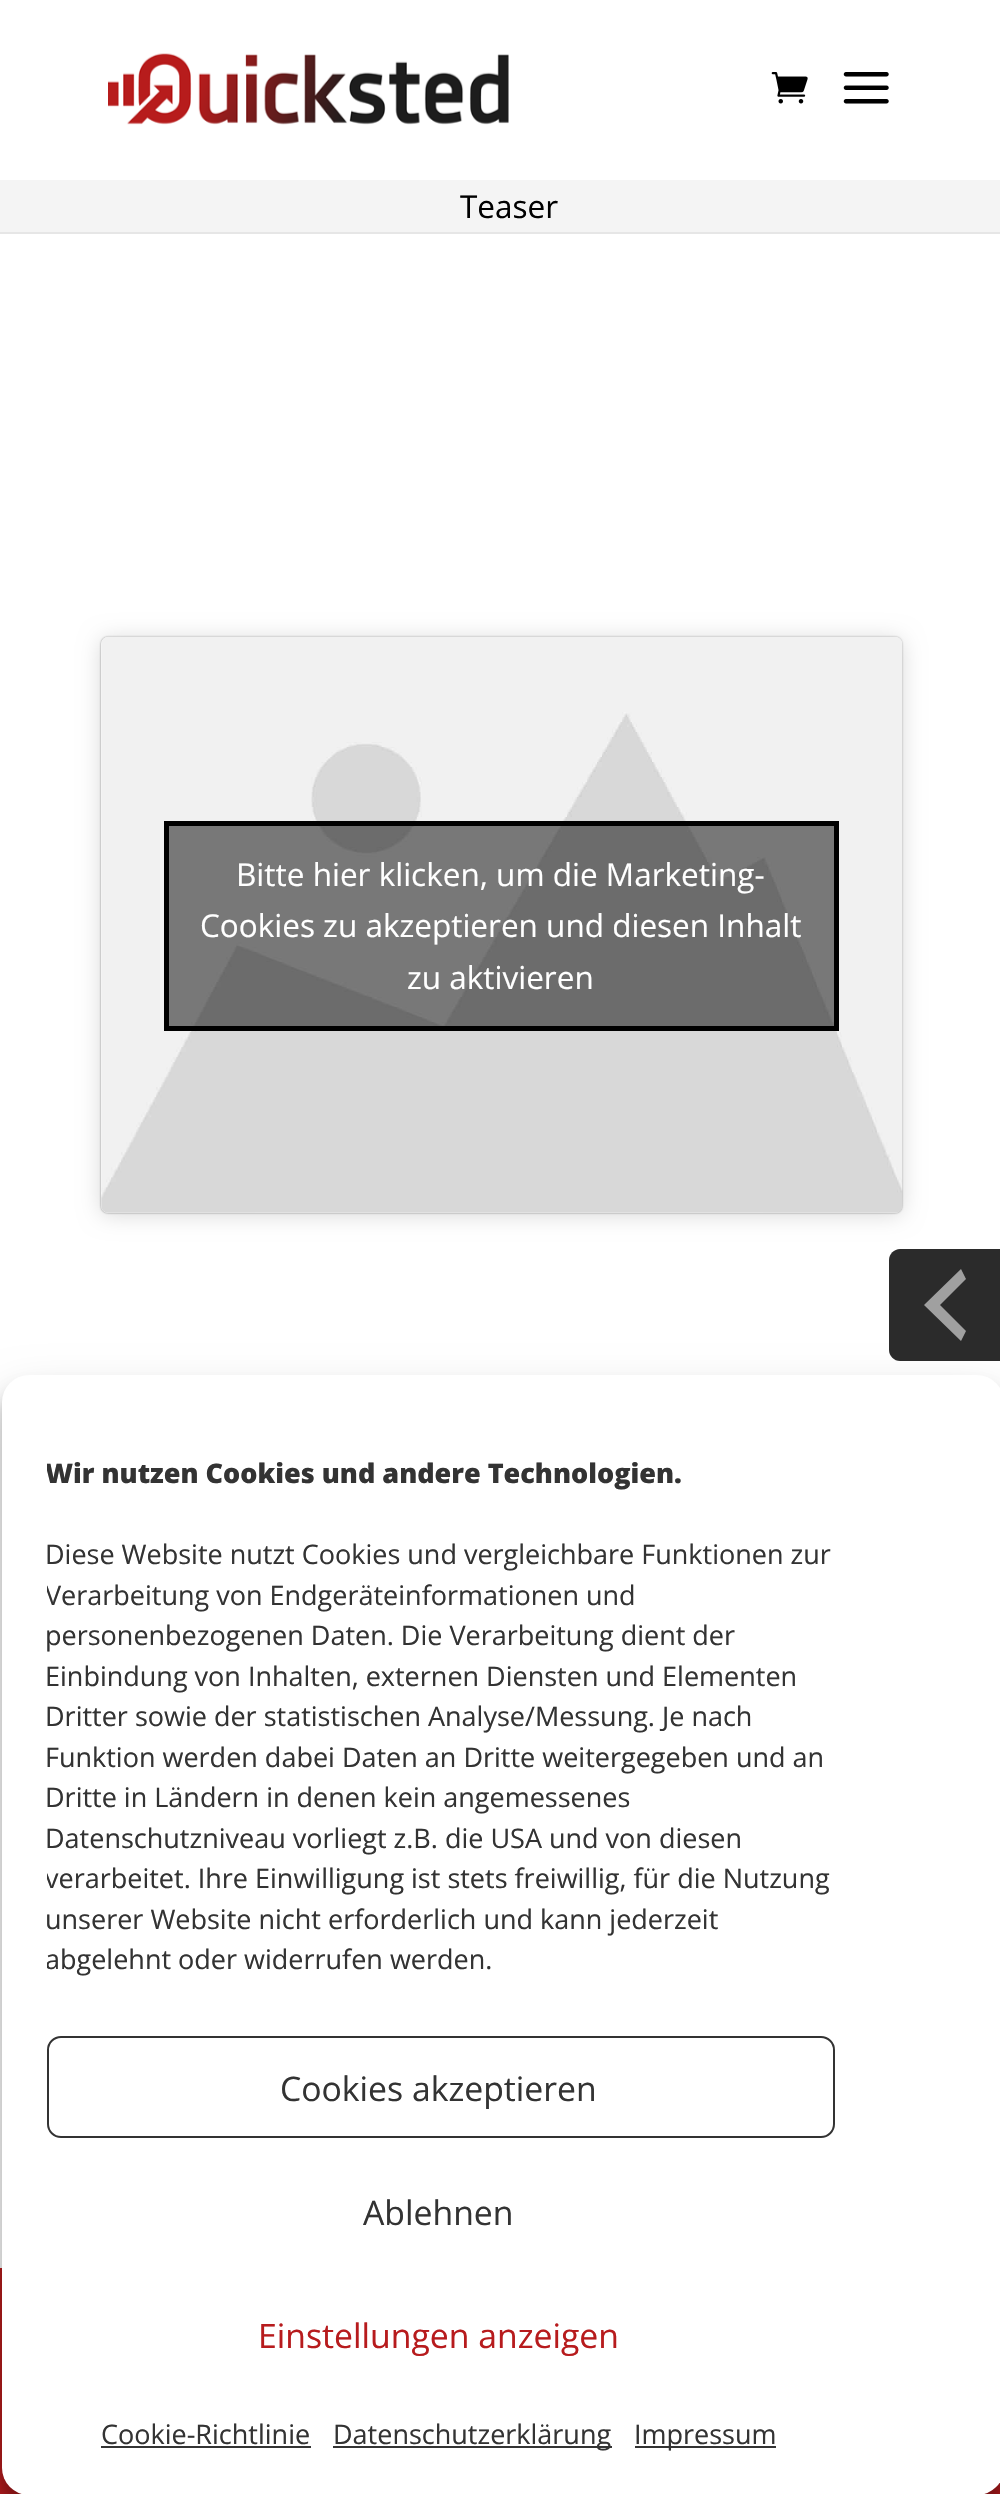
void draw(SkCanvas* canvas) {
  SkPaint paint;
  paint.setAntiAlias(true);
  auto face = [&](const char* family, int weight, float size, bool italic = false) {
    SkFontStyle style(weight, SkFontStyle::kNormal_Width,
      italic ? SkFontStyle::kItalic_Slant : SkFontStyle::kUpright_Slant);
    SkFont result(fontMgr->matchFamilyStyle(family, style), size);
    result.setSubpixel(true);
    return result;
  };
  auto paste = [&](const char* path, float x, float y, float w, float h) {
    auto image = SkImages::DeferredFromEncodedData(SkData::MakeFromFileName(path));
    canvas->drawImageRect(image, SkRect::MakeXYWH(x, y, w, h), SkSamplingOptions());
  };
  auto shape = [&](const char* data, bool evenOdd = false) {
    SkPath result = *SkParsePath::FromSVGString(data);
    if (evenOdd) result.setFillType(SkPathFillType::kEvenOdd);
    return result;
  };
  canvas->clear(0xffffffff);
  paint.setColor(0xffe6e6e6);
  canvas->drawRect(SkRect::MakeXYWH(0, 232, 1000, 2), paint);
  paste("img/1.png", 108, 53, 401, 72);
  paste("img/2.png", 771, 72, 37, 32);
  paste("img/3.png", 843, 72, 46, 32);
  paint.setColor(0xfff4f4f4);
  canvas->drawRect(SkRect::MakeXYWH(0, 180, 1000, 52), paint);
  paint.setColor(0x26000000);
  paint.setMaskFilter(SkMaskFilter::MakeBlur(kNormal_SkBlurStyle, 11));
  canvas->drawRoundRect(SkRect::MakeXYWH(101, 639, 801, 576), 7, 7, paint);
  paint.setMaskFilter(nullptr);
  paint.setColor(0x80000000);
  paint.setMaskFilter(SkMaskFilter::MakeBlur(kNormal_SkBlurStyle, 1));
  canvas->drawRoundRect(SkRect::MakeXYWH(101, 637, 801, 576), 7, 7, paint);
  paint.setMaskFilter(nullptr);
  paint.setColor(0xffffffff);
  canvas->drawRoundRect(SkRect::MakeXYWH(101, 637, 801, 576), 7, 7, paint);
  paste("img/4.png", 101, 636, 802, 577);
  paint.setColor(0x80000000);
  canvas->drawRect(SkRect::MakeXYWH(166.5f, 823.5f, 670, 205), paint);
  paint.setStroke(true);
  paint.setStrokeWidth(5);
  paint.setColor(0xff000000);
  canvas->drawRect(SkRect::MakeXYWH(166.5f, 823.5f, 670, 205), paint);
  paint.setStroke(false);
  paint.setColor(0xffb71b1d);
  canvas->drawRect(SkRect::MakeXYWH(0, 2268, 1000, 226), paint);
  paint.setColor(0x30000000);
  paint.setMaskFilter(SkMaskFilter::MakeBlur(kNormal_SkBlurStyle, 22.5f));
  canvas->drawRoundRect(SkRect::MakeXYWH(2, 1397, 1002, 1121), 27, 27, paint);
  paint.setMaskFilter(nullptr);
  paint.setColor(0xff2b2b2b);
  canvas->drawPath(shape("M900 1249H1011V1361H900C894 1361 889 1356 889 1350V1260C889 1254 894 1249 900 1249Z"), paint);
  paint.setColor(0xffa0a0a0);
  canvas->drawPath(shape("M966 1279L940 1305L966 1331L961 1341L924 1305L961 1269Z"), paint);
  paint.setColor(0x3b000000);
  paint.setMaskFilter(SkMaskFilter::MakeBlur(kNormal_SkBlurStyle, 7));
  canvas->drawRoundRect(SkRect::MakeXYWH(2, 1388, 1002, 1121), 27, 27, paint);
  paint.setMaskFilter(nullptr);
  paint.setColor(0xffffffff);
  canvas->drawRoundRect(SkRect::MakeXYWH(2, 1375, 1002, 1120), 27, 27, paint);
  paint.setStroke(true);
  paint.setStrokeWidth(2);
  paint.setColor(0xff333333);
  canvas->drawRoundRect(SkRect::MakeXYWH(48, 2037, 786, 100), 13, 13, paint);
  paint.setStroke(false);
  {
    const struct { float x, y, w, h; SkColor color; } items[] = {
      {101, 2446, 210, 2, 0xff333333},
      {333, 2446, 279, 2, 0xff333333},
      {635, 2446, 141, 2, 0xff333333},
    };
    for (auto [x, y, w, h, color] : items) {
      paint.setColor(color);
      canvas->drawRect(SkRect::MakeXYWH(x, y, w, h), paint);
    }
  }
  auto f0 = face("Open Sans", 400, 31.5f);
  paint.setColor(0xff000000);
  canvas->drawString("Teaser", 460, 218, f0, paint);
  paint.setColor(0xffffffff);
  {
    const struct { const char* s; float x, y; } items[] = {
      {"Bitte hier klicken, um die Marketing-", 236, 886},
      {"Cookies zu akzeptieren und diesen Inhalt", 200, 937},
      {"zu aktivieren", 407, 989},
    };
    for (auto [s, x, y] : items) {
      canvas->drawString(s, x, y, f0, paint);
    }
  }
  canvas->save();
  canvas->clipRect(SkRect::MakeXYWH(47, 1454, 788, 537));
  auto f1 = face("Open Sans", 800, 27);
  paint.setColor(0xff333333);
  canvas->drawString("Wir nutzen Cookies und andere Technologien.", 45, 1483, f1, paint);
  canvas->restore();
  auto f2 = face("Open Sans", 400, 27);
  canvas->drawString("Diese Website nutzt Cookies und vergleichbare Funktionen zur", 45, 1564, f2, paint);
  canvas->save();
  canvas->clipRect(SkRect::MakeXYWH(47, 1454, 788, 537));
  canvas->drawString("Verarbeitung von Endgeräteinformationen und", 45, 1605, f2, paint);
  canvas->restore();
  {
    const struct { const char* s; float x, y; } items[] = {
      {"personenbezogenen Daten. Die Verarbeitung dient der", 45, 1645},
      {"Einbindung von Inhalten, externen Diensten und Elementen", 45, 1686},
      {"Dritter sowie der statistischen Analyse/Messung. Je nach", 45, 1726},
      {"Funktion werden dabei Daten an Dritte weitergegeben und an", 45, 1767},
      {"Dritte in Ländern in denen kein angemessenes", 45, 1807},
      {"Datenschutzniveau vorliegt z.B. die USA und von diesen", 45, 1848},
    };
    for (auto [s, x, y] : items) {
      canvas->drawString(s, x, y, f2, paint);
    }
  }
  canvas->save();
  canvas->clipRect(SkRect::MakeXYWH(47, 1454, 788, 537));
  canvas->drawString("verarbeitet. Ihre Einwilligung ist stets freiwillig, für die Nutzung", 45, 1888, f2, paint);
  canvas->restore();
  canvas->drawString("unserer Website nicht erforderlich und kann jederzeit", 45, 1929, f2, paint);
  canvas->save();
  canvas->clipRect(SkRect::MakeXYWH(47, 1454, 788, 537));
  canvas->drawString("abgelehnt oder widerrufen werden.", 45, 1969, f2, paint);
  canvas->restore();
  auto f3 = face("Open Sans", 400, 33.75f);
  canvas->drawString("Cookies akzeptieren", 280, 2101, f3, paint);
  canvas->drawString("Ablehnen", 363, 2225, f3, paint);
  paint.setColor(0xffb71b1d);
  canvas->drawString("Einstellungen anzeigen", 258, 2348, f3, paint);
  paint.setColor(0xff333333);
  {
    const struct { const char* s; float x, y; } items[] = {
      {"Cookie-Richtlinie", 101, 2444},
      {"Datenschutzerklärung", 333, 2444},
      {"Impressum", 634, 2444},
    };
    for (auto [s, x, y] : items) {
      canvas->drawString(s, x, y, f2, paint);
    }
  }
}
